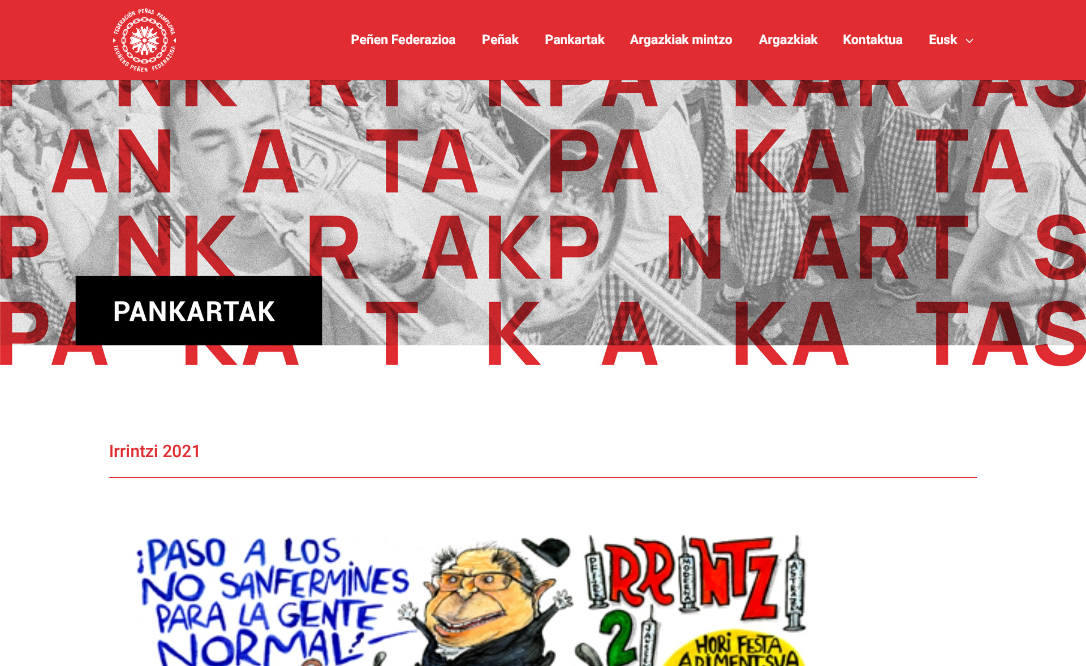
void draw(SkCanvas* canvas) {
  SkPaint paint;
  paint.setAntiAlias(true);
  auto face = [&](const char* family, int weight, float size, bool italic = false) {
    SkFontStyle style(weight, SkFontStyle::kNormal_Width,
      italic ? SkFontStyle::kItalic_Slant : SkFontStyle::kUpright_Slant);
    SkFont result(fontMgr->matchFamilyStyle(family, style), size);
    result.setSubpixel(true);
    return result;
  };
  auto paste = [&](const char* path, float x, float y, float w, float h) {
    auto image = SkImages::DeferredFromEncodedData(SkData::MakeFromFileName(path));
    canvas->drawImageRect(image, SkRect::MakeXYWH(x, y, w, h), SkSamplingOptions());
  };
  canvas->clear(0xffffffff);
  paste("img/3.png", 0, 80, 1086, 289);
  paint.setColor(0x1a000000);
  canvas->drawRect(SkRect::MakeXYWH(0, 80, 1086, 1), paint);
  paint.setColor(0xffe12d32);
  canvas->drawRect(SkRect::MakeXYWH(0, 0, 1086, 80), paint);
  paste("img/1.png", 113, 8, 63, 64);
  paste("img/2.png", 965, 38, 9, 5);
  canvas->drawRect(SkRect::MakeXYWH(109, 477, 868, 1), paint);
  paste("img/4.png", 135, 534, 673, 132);
  auto f0 = face("Roboto", 700, 13);
  paint.setColor(0xffffffff);
  {
    const struct { const char* s; float x, y; } items[] = {
      {"Peñen Federazioa", 351, 44},
      {"Peñak", 482, 44},
      {"Pankartak", 545, 44},
      {"Argazkiak mintzo", 630, 44},
      {"Argazkiak", 759, 44},
      {"Kontaktua", 843, 44},
      {"Eusk", 929, 44},
    };
    for (auto [s, x, y] : items) {
      canvas->drawString(s, x, y, f0, paint);
    }
  }
  auto f1 = face("Roboto", 500, 17);
  paint.setColor(0xffe12d32);
  canvas->drawString("Irrintzi 2021", 109, 457, f1, paint);
}
